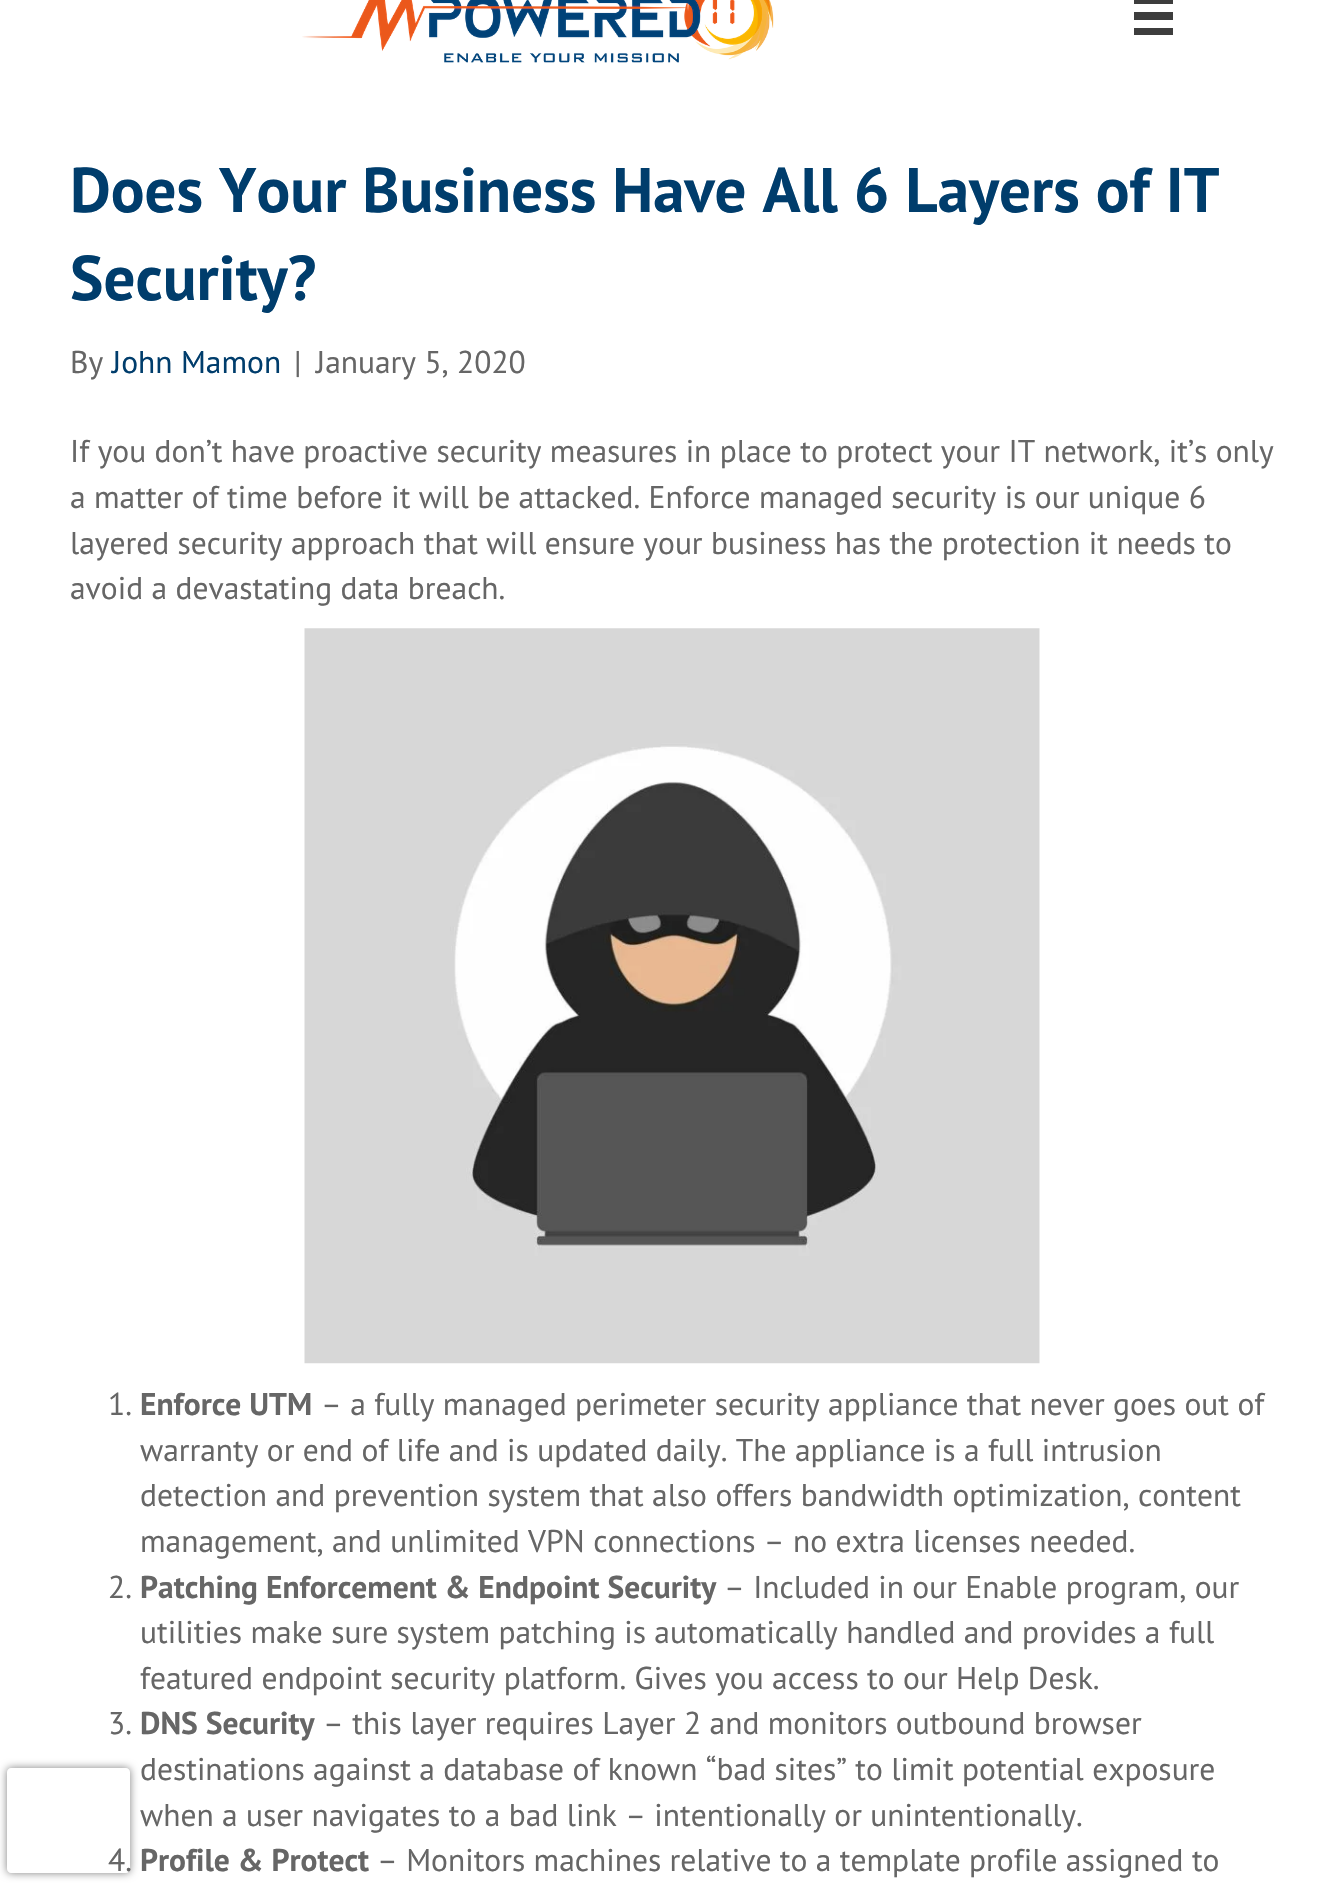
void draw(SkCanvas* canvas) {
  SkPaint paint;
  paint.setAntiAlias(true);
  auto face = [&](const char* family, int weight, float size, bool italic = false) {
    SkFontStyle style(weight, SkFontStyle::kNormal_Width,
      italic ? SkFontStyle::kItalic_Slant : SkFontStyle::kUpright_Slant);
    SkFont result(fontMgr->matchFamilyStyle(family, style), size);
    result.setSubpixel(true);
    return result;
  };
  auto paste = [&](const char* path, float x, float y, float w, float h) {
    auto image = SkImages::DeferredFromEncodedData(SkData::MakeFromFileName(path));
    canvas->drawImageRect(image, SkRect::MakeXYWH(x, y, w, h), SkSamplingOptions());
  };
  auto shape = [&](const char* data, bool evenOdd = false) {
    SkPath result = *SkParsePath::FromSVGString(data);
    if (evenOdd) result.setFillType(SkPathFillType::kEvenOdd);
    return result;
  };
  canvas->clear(0xffffffff);
  paste("img/1.png", 302, 0, 472, 63);
  {
    const struct { float x, y, w, h; SkColor color; } items[] = {
      {1134, 0, 39, 4, 0xff3d3d3d},
      {1134, 12, 39, 8, 0xff3d3d3d},
      {1134, 28, 39, 7, 0xff3d3d3d},
    };
    for (auto [x, y, w, h, color] : items) {
      paint.setColor(color);
      canvas->drawRect(SkRect::MakeXYWH(x, y, w, h), paint);
    }
  }
  paste("img/2.png", 304, 628, 736, 736);
  canvas->save();
  canvas->clipPath(shape("M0 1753H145V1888H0ZM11 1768H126C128 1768 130 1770 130 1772V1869C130 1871 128 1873 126 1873H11C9 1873 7 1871 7 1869V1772C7 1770 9 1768 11 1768Z", true), true);
  paint.setColor(0xff808080);
  paint.setMaskFilter(SkMaskFilter::MakeBlur(kNormal_SkBlurStyle, 4.5f));
  canvas->drawRoundRect(SkRect::MakeXYWH(7, 1768, 123, 105), 4, 4, paint);
  paint.setMaskFilter(nullptr);
  canvas->restore();
  auto f0 = face("PT Sans", 700, 63);
  paint.setColor(0xff003d6c);
  canvas->drawString("Does Your Business Have All 6 Layers of IT", 70, 212, f0, paint);
  canvas->drawString("Security?", 70, 300, f0, paint);
  auto f1 = face("PT Sans", 400, 31.5f);
  paint.setColor(0xff666666);
  canvas->drawString("By", 70, 373, f1, paint);
  paint.setColor(0xff003d6c);
  canvas->drawString("John Mamon", 112, 373, f1, paint);
  paint.setColor(0xff666666);
  {
    const struct { const char* s; float x, y; } items[] = {
      {"|", 294, 373},
      {"January 5, 2020", 316, 373},
      {"If you don’t have proactive security measures in place to protect your IT network, it’s only", 70, 462},
      {"a matter of time before it will be attacked. Enforce managed security is our unique 6", 70, 508},
      {"layered security approach that will ensure your business has the protection it needs to", 70, 554},
      {"avoid a devastating data breach.", 70, 599},
      {"1.", 108, 1415},
    };
    for (auto [s, x, y] : items) {
      canvas->drawString(s, x, y, f1, paint);
    }
  }
  auto f2 = face("PT Sans", 700, 31.5f);
  canvas->drawString("Enforce UTM", 140, 1415, f2, paint);
  {
    const struct { const char* s; float x, y; } items[] = {
      {"– a fully managed perimeter security appliance that never goes out of", 321, 1415},
      {"warranty or end of life and is updated daily. The appliance is a full intrusion", 140, 1461},
      {"detection and prevention system that also offers bandwidth optimization, content", 140, 1506},
      {"management, and unlimited VPN connections – no extra licenses needed.", 140, 1552},
      {"2.", 108, 1598},
    };
    for (auto [s, x, y] : items) {
      canvas->drawString(s, x, y, f1, paint);
    }
  }
  canvas->drawString("Patching Enforcement & Endpoint Security", 140, 1598, f2, paint);
  {
    const struct { const char* s; float x, y; } items[] = {
      {"– Included in our Enable program, our", 724, 1598},
      {"utilities make sure system patching is automatically handled and provides a full", 140, 1643},
      {"featured endpoint security platform. Gives you access to our Help Desk.", 140, 1689},
      {"3.", 108, 1734},
    };
    for (auto [s, x, y] : items) {
      canvas->drawString(s, x, y, f1, paint);
    }
  }
  canvas->drawString("DNS Security", 140, 1734, f2, paint);
  {
    const struct { const char* s; float x, y; } items[] = {
      {"– this layer requires Layer 2 and monitors outbound browser", 323, 1734},
      {"destinations against a database of known “bad sites” to limit potential exposure", 140, 1780},
      {"when a user navigates to a bad link – intentionally or unintentionally.", 140, 1826},
      {"4.", 108, 1871},
    };
    for (auto [s, x, y] : items) {
      canvas->drawString(s, x, y, f1, paint);
    }
  }
  canvas->drawString("Profile & Protect", 140, 1871, f2, paint);
  canvas->drawString("– Monitors machines relative to a template profile assigned to", 377, 1871, f1, paint);
}
